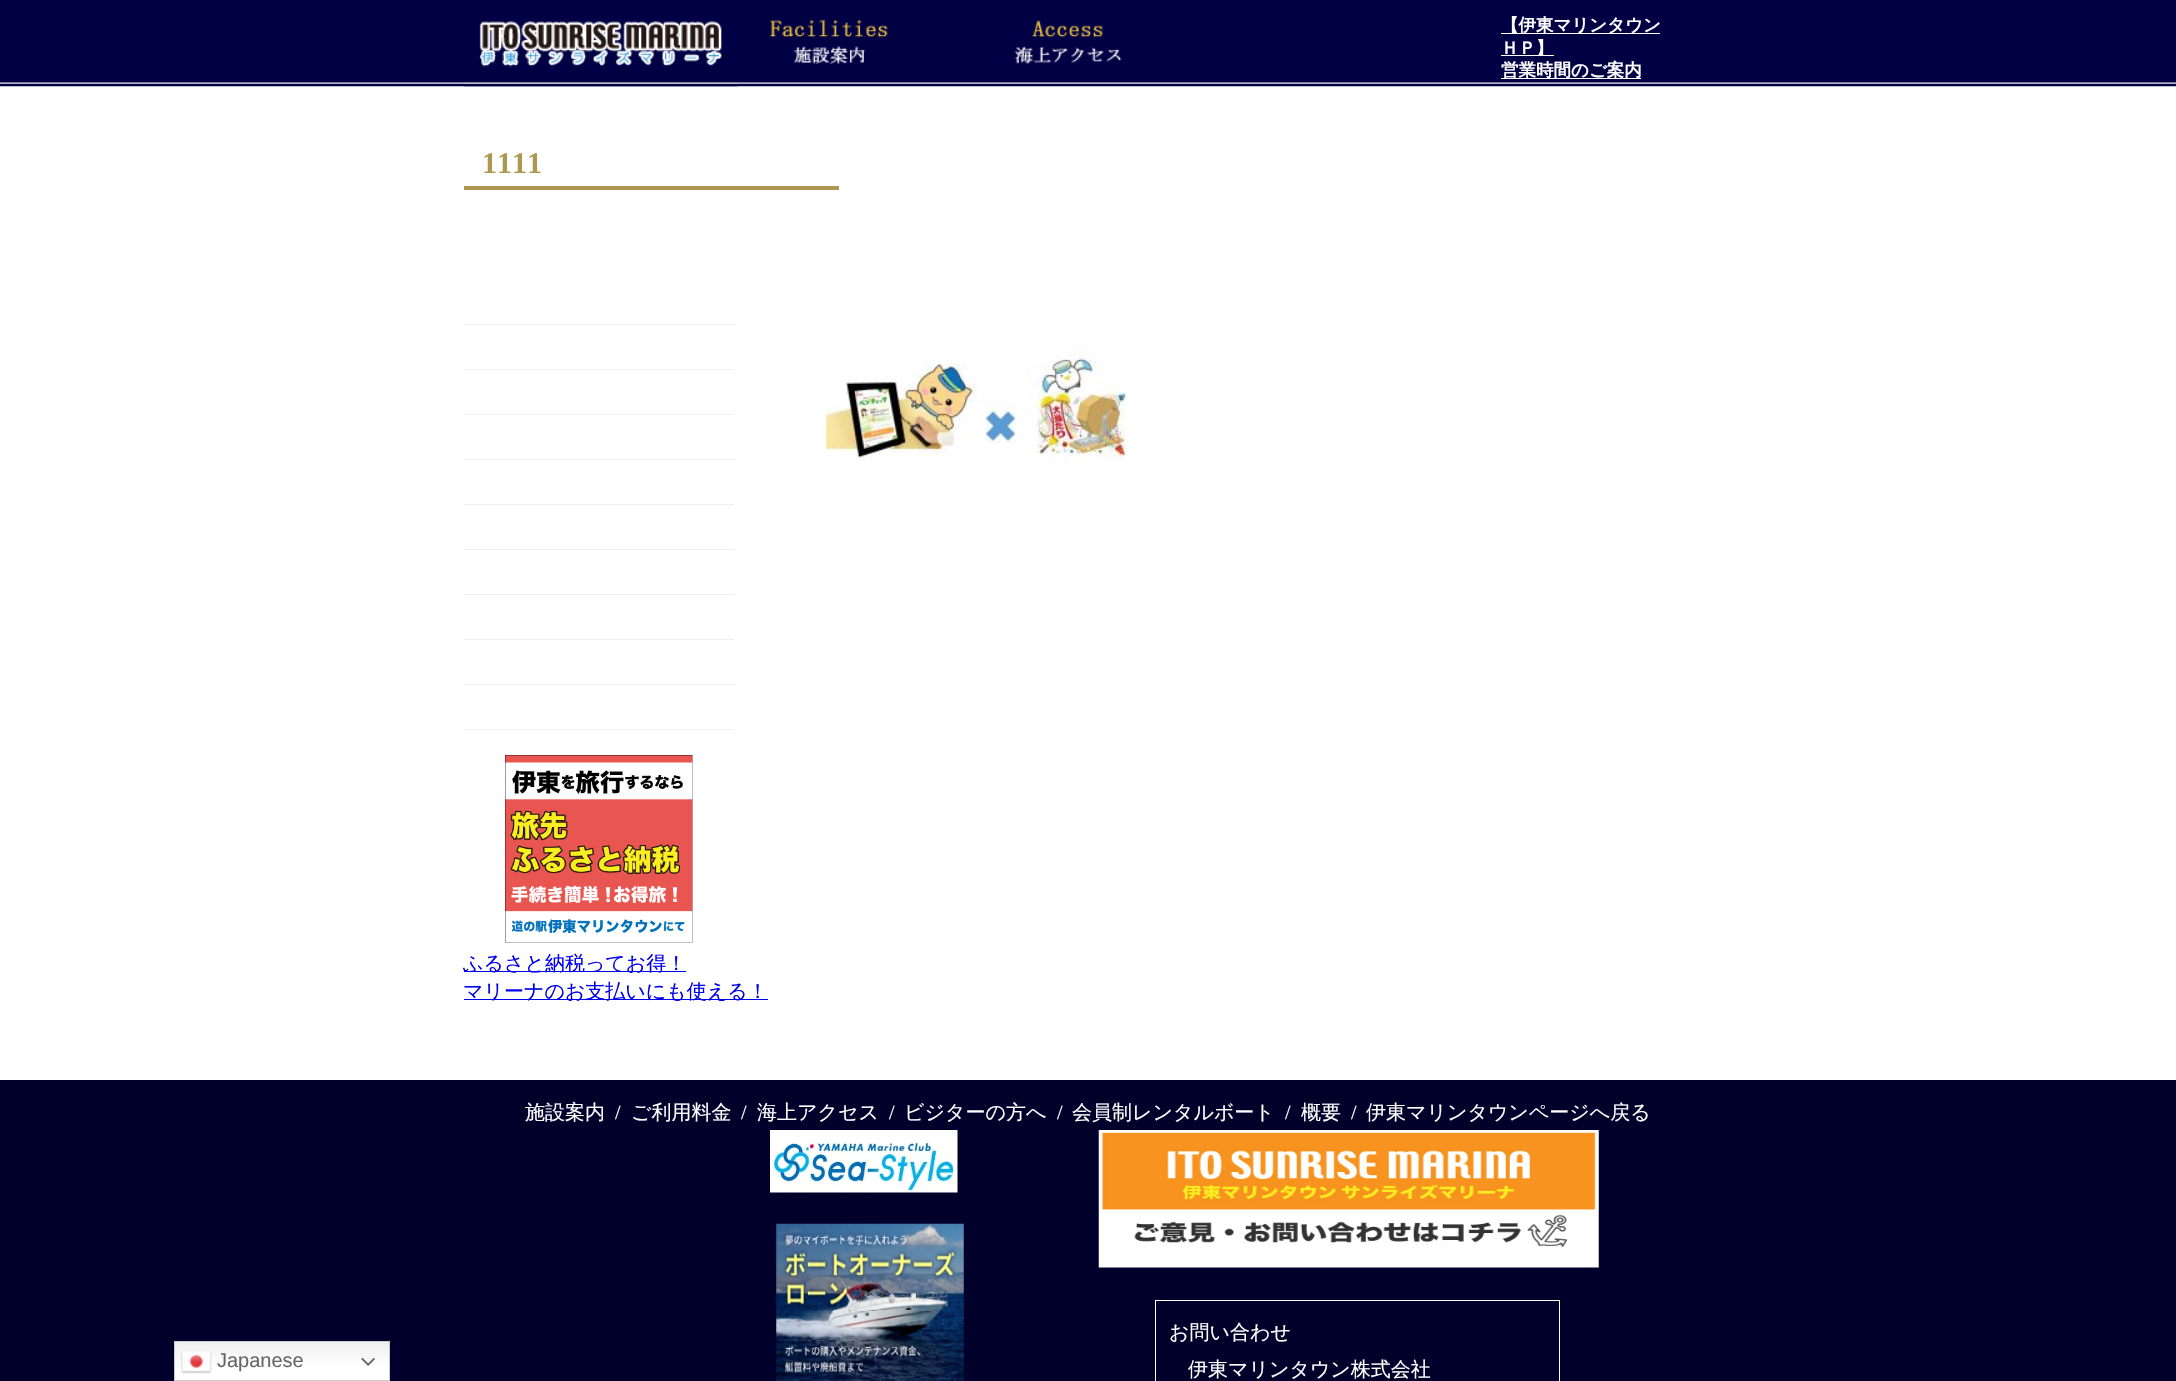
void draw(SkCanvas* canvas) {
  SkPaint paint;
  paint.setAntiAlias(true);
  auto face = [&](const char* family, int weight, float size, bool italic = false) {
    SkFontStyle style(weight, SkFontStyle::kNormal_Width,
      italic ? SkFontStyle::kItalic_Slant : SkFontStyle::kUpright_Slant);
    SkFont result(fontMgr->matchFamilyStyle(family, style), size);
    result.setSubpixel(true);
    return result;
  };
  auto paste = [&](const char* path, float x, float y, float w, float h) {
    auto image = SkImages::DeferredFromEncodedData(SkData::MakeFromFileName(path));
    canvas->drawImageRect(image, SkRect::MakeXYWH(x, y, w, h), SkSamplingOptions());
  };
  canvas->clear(0xff00002b);
  paint.setColor(0xffffffff);
  canvas->drawRect(SkRect::MakeXYWH(0, 86, 2176, 994), paint);
  paste("img/1.png", 0, 0, 2176, 87);
  paste("img/2.png", 463, 21, 275, 66);
  paste("img/3.png", 770, 19, 118, 45);
  paste("img/4.png", 1015, 20, 107, 44);
  {
    const struct { float x, y, w, h; SkColor color; } items[] = {
      {1501, 33, 159, 1, 0xffffffff},
      {1501, 55, 53, 1, 0xffffffff},
      {1501, 78, 140, 1, 0xffffffff},
      {464, 186, 375, 4, 0xffac9851},
    };
    for (auto [x, y, w, h, color] : items) {
      paint.setColor(color);
      canvas->drawRect(SkRect::MakeXYWH(x, y, w, h), paint);
    }
  }
  paste("img/5.png", 826, 344, 301, 116);
  {
    const struct { float x, y, w, h; SkColor color; } items[] = {
      {464, 324, 270, 1, 0xffeeeeee},
      {464, 369, 270, 1, 0xffeeeeee},
      {464, 414, 270, 1, 0xffeeeeee},
      {464, 459, 270, 1, 0xffeeeeee},
      {464, 504, 270, 1, 0xffeeeeee},
      {464, 549, 270, 1, 0xffeeeeee},
      {464, 594, 270, 1, 0xffeeeeee},
      {464, 639, 270, 1, 0xffeeeeee},
      {464, 684, 270, 1, 0xffeeeeee},
      {464, 729, 270, 1, 0xffeeeeee},
    };
    for (auto [x, y, w, h, color] : items) {
      paint.setColor(color);
      canvas->drawRect(SkRect::MakeXYWH(x, y, w, h), paint);
    }
  }
  paste("img/6.png", 505, 755, 188, 188);
  paint.setColor(0xff0000ee);
  canvas->drawRect(SkRect::MakeXYWH(464, 971, 222, 1), paint);
  canvas->drawRect(SkRect::MakeXYWH(464, 999, 304, 1), paint);
  {
    const SkColor colors[] = {0xffefefef, 0xffffffff};
    const float stops[] = {0, 0.7f};
    const SkPoint ends[] = {{282, 1341}, {282, 1381}};
    paint.setShader(SkGradientShader::MakeLinear(ends, colors, stops, 2, SkTileMode::kClamp));
    paint.setAlpha(255);
  }
  canvas->drawRect(SkRect::MakeXYWH(175, 1342, 214, 38), paint);
  paint.setStroke(true);
  paint.setStrokeWidth(1);
  paint.setShader(nullptr);
  paint.setColor(0xffcccccc);
  canvas->drawRect(SkRect::MakeXYWH(174.5f, 1341.5f, 215, 39), paint);
  paste("img/7.png", 181, 1350, 31, 24);
  paste("img/8.png", 361, 1357, 14, 9);
  paste("img/9.png", 770, 1130, 188, 63);
  paste("img/10.png", 776, 1223, 188, 158);
  paste("img/11.png", 1098, 1130, 501, 138);
  paint.setColor(0xffffffff);
  canvas->drawRect(SkRect::MakeXYWH(1155.5f, 1300.5f, 404, 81), paint);
  auto f0 = face("WenQuanYi Zen Hei", 700, 17.5f);
  paint.setStroke(false);
  {
    const struct { const char* s; float x, y; } items[] = {
      {"【伊東マリンタウン", 1501, 31},
      {"ＨＰ】", 1501, 54},
      {"営業時間のご案内", 1501, 76},
    };
    for (auto [s, x, y] : items) {
      canvas->drawString(s, x, y, f0, paint);
    }
  }
  auto f1 = face("Liberation Serif", 700, 30);
  paint.setColor(0xffac9851);
  canvas->drawString("1111", 482, 173, f1, paint);
  auto f2 = face("WenQuanYi Zen Hei", 500, 20);
  paint.setColor(0xff0000ee);
  canvas->drawString("ふるさと納税ってお得！", 463, 970, f2, paint);
  canvas->drawString("マリーナのお支払いにも使える！", 463, 998, f2, paint);
  auto f3 = face("Liberation Sans", 400, 20);
  paint.setColor(0xff666666);
  canvas->drawString("Japanese", 217, 1367, f3, paint);
  paint.setColor(0xffffffff);
  canvas->drawString("施設案内", 525, 1119, f2, paint);
  auto f4 = face("Liberation Serif", 400, 20);
  canvas->drawString("/", 615, 1119, f4, paint);
  canvas->drawString("ご利用料金", 631, 1119, f2, paint);
  canvas->drawString("/", 741, 1119, f4, paint);
  canvas->drawString("海上アクセス", 757, 1119, f2, paint);
  canvas->drawString("/", 889, 1119, f4, paint);
  canvas->drawString("ビジターの方へ", 904, 1119, f2, paint);
  canvas->drawString("/", 1057, 1119, f4, paint);
  canvas->drawString("会員制レンタルボート", 1072, 1119, f2, paint);
  canvas->drawString("/", 1285, 1119, f4, paint);
  canvas->drawString("概要", 1301, 1119, f2, paint);
  canvas->drawString("/", 1351, 1119, f4, paint);
  {
    const struct { const char* s; float x, y; } items[] = {
      {"伊東マリンタウンページへ戻る", 1366, 1119},
      {"お問い合わせ", 1169, 1339},
      {"伊東マリンタウン株式会社", 1188, 1376},
    };
    for (auto [s, x, y] : items) {
      canvas->drawString(s, x, y, f2, paint);
    }
  }
}
